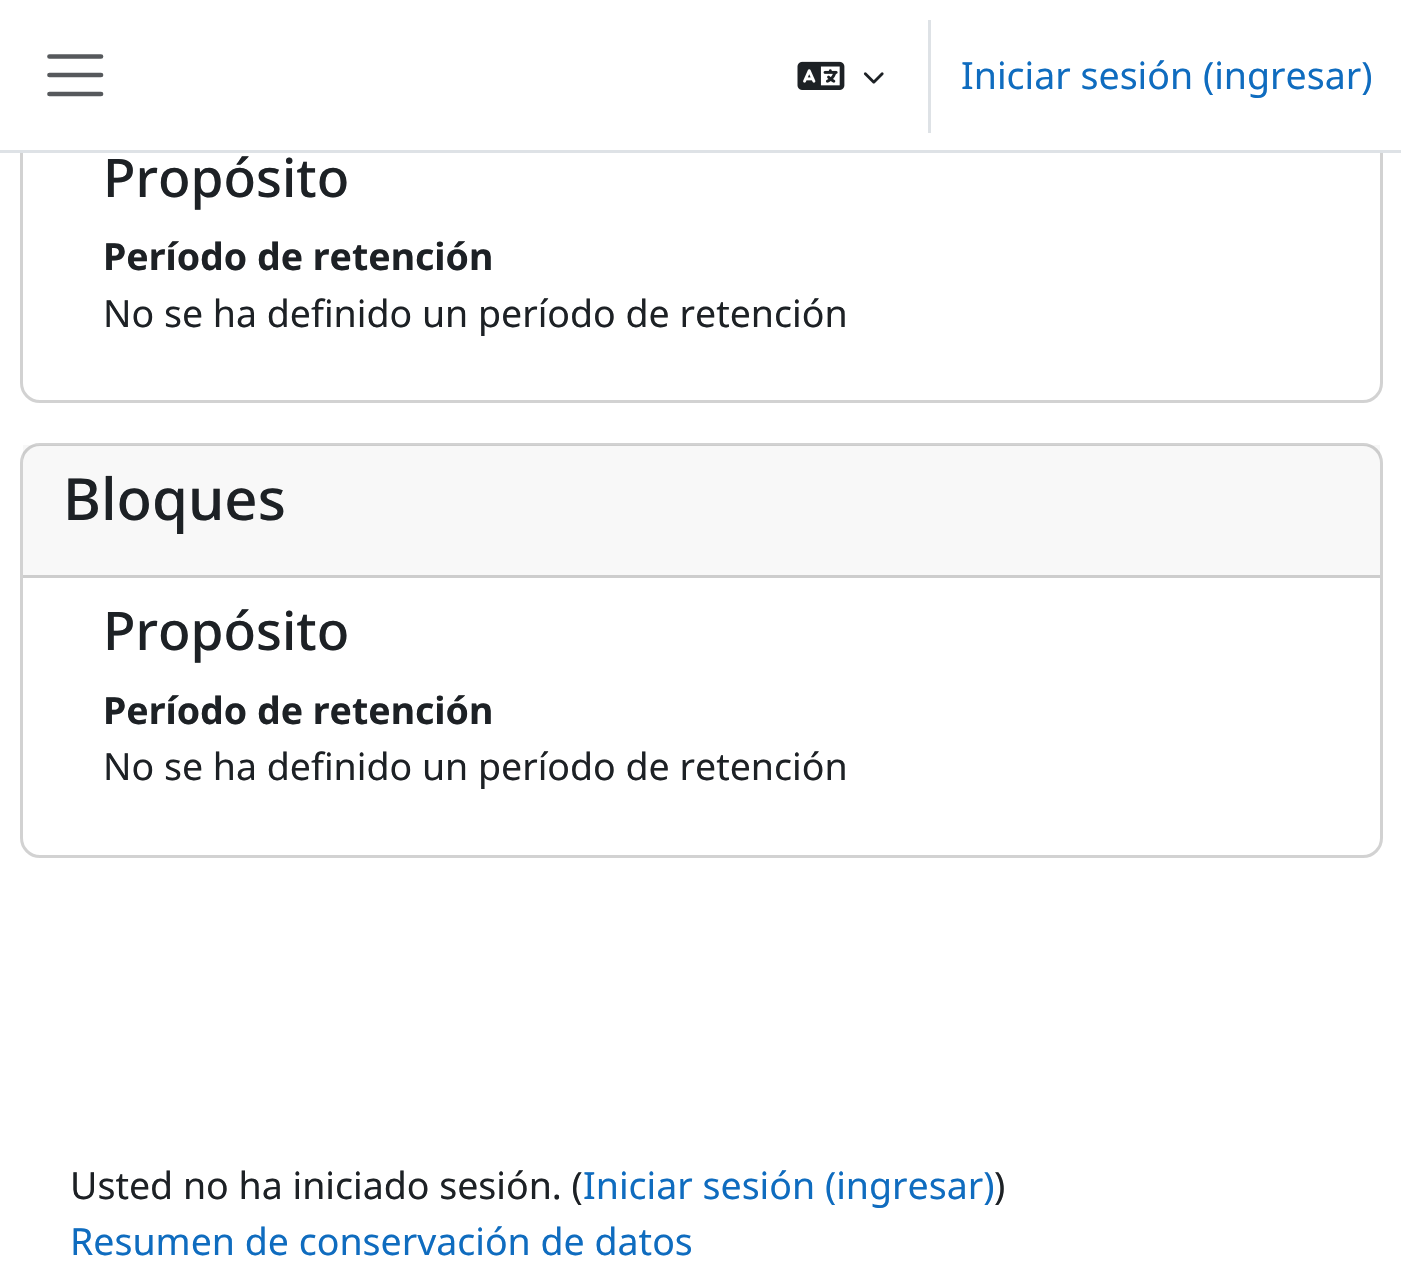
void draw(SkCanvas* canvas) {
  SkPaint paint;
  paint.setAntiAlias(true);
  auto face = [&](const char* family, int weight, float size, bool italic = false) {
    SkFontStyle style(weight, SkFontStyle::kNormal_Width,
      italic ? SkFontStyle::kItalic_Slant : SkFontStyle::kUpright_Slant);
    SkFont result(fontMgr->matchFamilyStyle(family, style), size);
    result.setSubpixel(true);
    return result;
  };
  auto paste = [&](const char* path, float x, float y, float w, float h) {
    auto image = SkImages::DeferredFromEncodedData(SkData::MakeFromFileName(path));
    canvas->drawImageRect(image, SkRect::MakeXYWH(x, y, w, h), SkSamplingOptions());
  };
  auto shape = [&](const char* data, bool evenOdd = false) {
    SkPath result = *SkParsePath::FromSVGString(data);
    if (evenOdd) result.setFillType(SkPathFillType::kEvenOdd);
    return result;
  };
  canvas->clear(0xffffffff);
  paint.setStroke(true);
  paint.setStrokeWidth(3);
  paint.setColor(0xffd2d2d2);
  canvas->drawRoundRect(SkRect::MakeXYWH(21.5f, -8.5f, 1360, 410), 18.5f, 18.5f, paint);
  paint.setStroke(false);
  paint.setColor(0xffffffff);
  canvas->drawRect(SkRect::MakeXYWH(20, 0, 1363, 150), paint);
  paint.setColor(0xffdee2e6);
  canvas->drawRect(SkRect::MakeXYWH(0, 150, 1401, 3), paint);
  paint.setStroke(true);
  paint.setStrokeWidth(4.7f);
  paint.setStrokeCap(SkPaint::kRound_Cap);
  paint.setColor(0xff56595c);
  canvas->drawPath(shape("M49.5 56.5H101M49.5 75H101M49.5 94H101"), paint);
  paste("img/1.png", 797, 61, 48, 29);
  paste("img/2.png", 863, 72, 21, 12);
  paint.setStroke(false);
  paint.setColor(0xffdee2e6);
  canvas->drawRect(SkRect::MakeXYWH(928, 20, 3, 113), paint);
  paint.setStroke(true);
  paint.setStrokeWidth(3);
  paint.setStrokeCap(SkPaint::kButt_Cap);
  paint.setColor(0xffd2d2d2);
  canvas->drawRoundRect(SkRect::MakeXYWH(21.5f, 444.5f, 1360, 412), 18.5f, 18.5f, paint);
  paint.setStroke(false);
  paint.setColor(0x081d2125);
  canvas->drawRect(SkRect::MakeXYWH(23, 445, 1357, 130), paint);
  paint.setColor(0xffcdcdcd);
  canvas->drawRect(SkRect::MakeXYWH(23, 575, 1357, 3), paint);
  auto f0 = face("Noto Sans", 400, 37.5f);
  paint.setColor(0xff0f6cbf);
  canvas->drawString("Iniciar sesión (ingresar)", 961, 89, f0, paint);
  auto f1 = face("Noto Sans", 500, 53.25f);
  paint.setColor(0xff1d2125);
  canvas->drawString("Propósito", 103, 197, f1, paint);
  auto f2 = face("Noto Sans", 700, 37.5f);
  canvas->drawString("Período de retención", 103, 270, f2, paint);
  canvas->drawString("No se ha definido un período de retención", 103, 327, f0, paint);
  auto f3 = face("Noto Sans", 500, 58);
  canvas->drawString("Bloques", 63, 520, f3, paint);
  canvas->drawString("Propósito", 103, 650, f1, paint);
  canvas->drawString("Período de retención", 103, 724, f2, paint);
  canvas->drawString("No se ha definido un período de retención", 103, 780, f0, paint);
  canvas->drawString("Usted no ha iniciado sesión. (", 70, 1199, f0, paint);
  paint.setColor(0xff0f6cbf);
  canvas->drawString("Iniciar sesión (ingresar)", 583, 1199, f0, paint);
  paint.setColor(0xff1d2125);
  canvas->drawString(")", 994, 1199, f0, paint);
  paint.setColor(0xff0f6cbf);
  canvas->drawString("Resumen de conservación de datos", 70, 1255, f0, paint);
}
